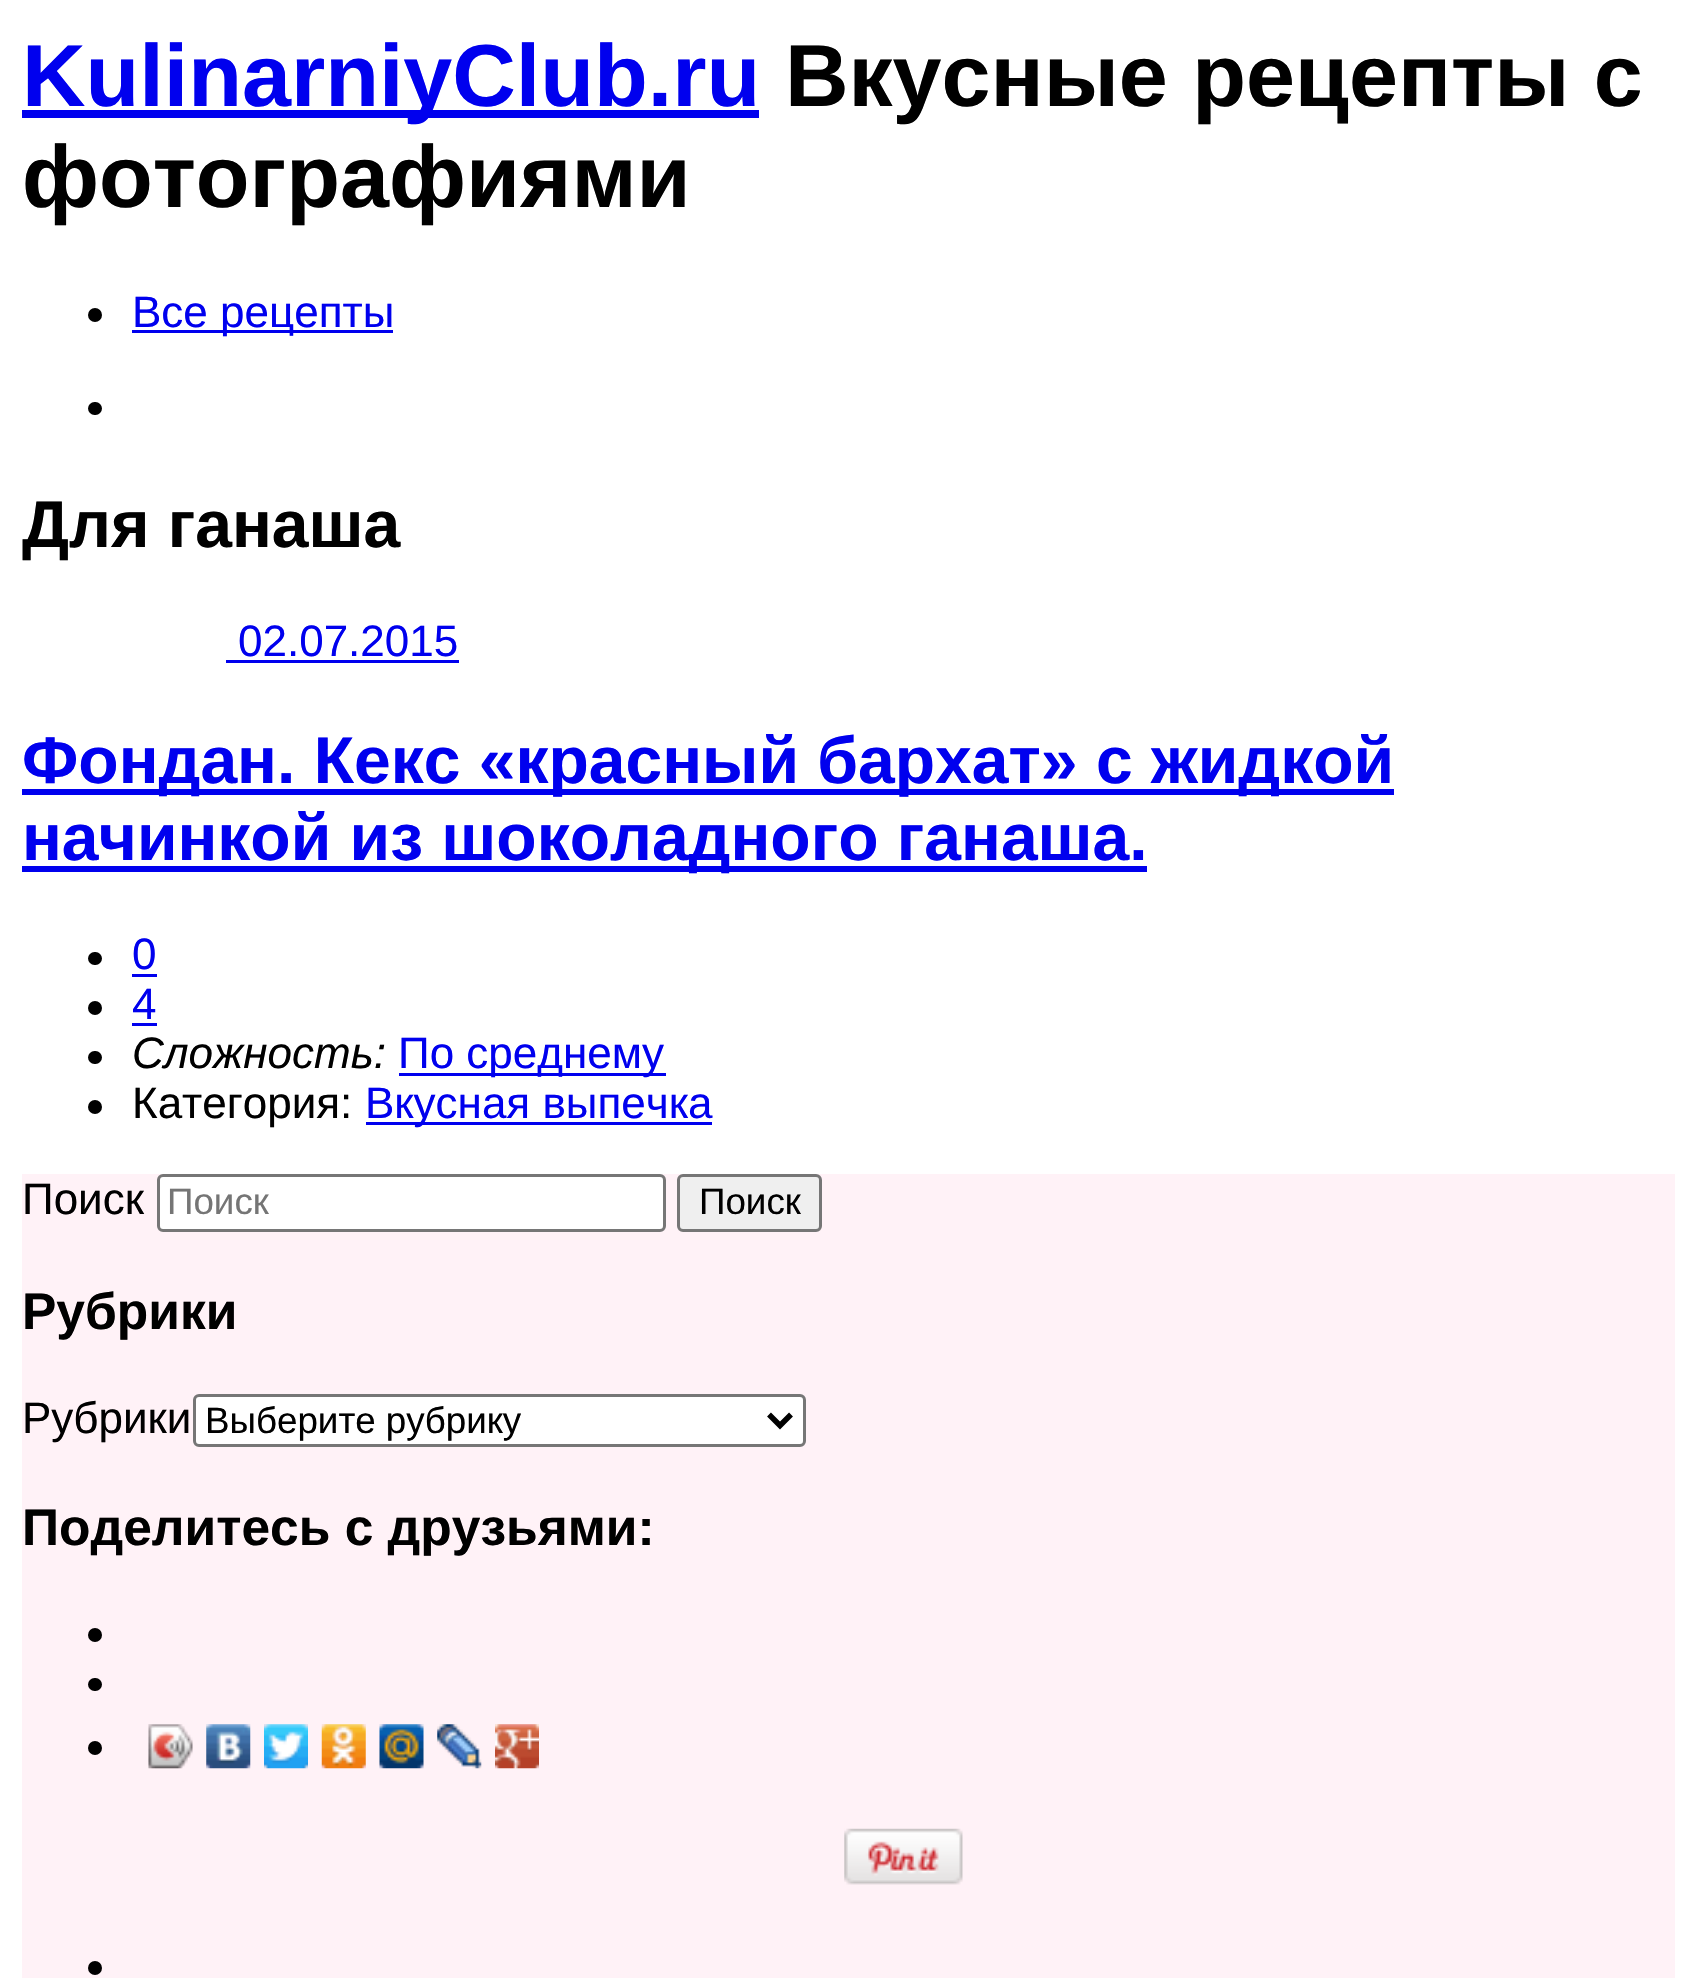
void draw(SkCanvas* canvas) {
  SkPaint paint;
  paint.setAntiAlias(true);
  auto face = [&](const char* family, int weight, float size, bool italic = false) {
    SkFontStyle style(weight, SkFontStyle::kNormal_Width,
      italic ? SkFontStyle::kItalic_Slant : SkFontStyle::kUpright_Slant);
    SkFont result(fontMgr->matchFamilyStyle(family, style), size);
    result.setSubpixel(true);
    return result;
  };
  auto paste = [&](const char* path, float x, float y, float w, float h) {
    auto image = SkImages::DeferredFromEncodedData(SkData::MakeFromFileName(path));
    canvas->drawImageRect(image, SkRect::MakeXYWH(x, y, w, h), SkSamplingOptions());
  };
  auto shape = [&](const char* data, bool evenOdd = false) {
    SkPath result = *SkParsePath::FromSVGString(data);
    if (evenOdd) result.setFillType(SkPathFillType::kEvenOdd);
    return result;
  };
  canvas->clear(0xffffffff);
  paint.setColor(0xff0000ee);
  canvas->drawRect(SkRect::MakeXYWH(22, 110, 737, 8), paint);
  paint.setColor(0xff000000);
  canvas->drawCircle(95, 315, 7, paint);
  paint.setColor(0xff0000ee);
  canvas->drawRect(SkRect::MakeXYWH(132, 330, 261, 3), paint);
  paint.setColor(0xff000000);
  canvas->drawRoundRect(SkRect::MakeXYWH(88, 402, 14, 13), 6.5f, 6.5f, paint);
  {
    const struct { float x, y, w, h; SkColor color; } items[] = {
      {226, 660, 233, 3, 0xff0000ee},
      {22, 789, 1372, 6, 0xff0000ee},
      {22, 866, 1125, 6, 0xff0000ee},
    };
    for (auto [x, y, w, h, color] : items) {
      paint.setColor(color);
      canvas->drawRect(SkRect::MakeXYWH(x, y, w, h), paint);
    }
  }
  paint.setColor(0xff000000);
  canvas->drawRoundRect(SkRect::MakeXYWH(88, 952, 14, 13), 6.5f, 6.5f, paint);
  paint.setColor(0xff0000ee);
  canvas->drawRect(SkRect::MakeXYWH(132, 974, 25, 3), paint);
  paint.setColor(0xff000000);
  canvas->drawCircle(95, 1008, 7, paint);
  paint.setColor(0xff0000ee);
  canvas->drawRect(SkRect::MakeXYWH(132, 1023, 25, 3), paint);
  paint.setColor(0xff000000);
  canvas->drawRoundRect(SkRect::MakeXYWH(88, 1051, 14, 13), 6.5f, 6.5f, paint);
  paint.setColor(0xff0000ee);
  canvas->drawRect(SkRect::MakeXYWH(399, 1073, 267, 3), paint);
  paint.setColor(0xff000000);
  canvas->drawCircle(95, 1107, 7, paint);
  paint.setColor(0xff0000ee);
  canvas->drawRect(SkRect::MakeXYWH(366, 1122, 346, 3), paint);
  paint.setColor(0xfffff2f7);
  canvas->drawRect(SkRect::MakeXYWH(22, 1174, 1653, 804), paint);
  paint.setColor(0xffffffff);
  canvas->drawRoundRect(SkRect::MakeXYWH(158.5f, 1175.5f, 506, 55), 4.5f, 4.5f, paint);
  paint.setStroke(true);
  paint.setStrokeWidth(3);
  paint.setColor(0xff767676);
  canvas->drawRoundRect(SkRect::MakeXYWH(158.5f, 1175.5f, 506, 55), 4.5f, 4.5f, paint);
  paint.setStroke(false);
  paint.setColor(0xffefefef);
  canvas->drawRoundRect(SkRect::MakeXYWH(678.5f, 1175.5f, 142, 55), 4.5f, 4.5f, paint);
  paint.setStroke(true);
  paint.setColor(0xff767676);
  canvas->drawRoundRect(SkRect::MakeXYWH(678.5f, 1175.5f, 142, 55), 4.5f, 4.5f, paint);
  paint.setStroke(false);
  paint.setColor(0xffffffff);
  canvas->drawRoundRect(SkRect::MakeXYWH(194.5f, 1395.5f, 610, 50), 4.5f, 4.5f, paint);
  paint.setStroke(true);
  paint.setColor(0xff767676);
  canvas->drawRoundRect(SkRect::MakeXYWH(194.5f, 1395.5f, 610, 50), 4.5f, 4.5f, paint);
  paint.setStrokeWidth(5.5f);
  paint.setColor(0xff000000);
  canvas->drawPath(shape("M769 1414.5L780 1425.5L791 1414.5"), paint);
  paint.setStroke(false);
  canvas->drawCircle(95, 1635, 7, paint);
  canvas->drawRoundRect(SkRect::MakeXYWH(88, 1678, 14, 13), 6.5f, 6.5f, paint);
  canvas->drawCircle(95, 1748, 7, paint);
  paste("img/1.png", 148, 1724, 45, 45);
  paste("img/2.png", 148, 1724, 45, 45);
  paste("img/3.png", 206, 1724, 45, 45);
  paste("img/4.png", 264, 1724, 44, 45);
  paste("img/5.png", 321, 1724, 45, 45);
  paste("img/6.png", 379, 1724, 45, 45);
  paste("img/7.png", 437, 1724, 45, 45);
  paste("img/8.png", 495, 1724, 44, 45);
  paste("img/9.png", 844, 1828, 119, 57);
  canvas->drawCircle(95, 1968, 7, paint);
  auto f0 = face("Liberation Sans", 700, 88);
  paint.setColor(0xff0000ee);
  canvas->drawString("KulinarniyClub.ru", 22, 106, f0, paint);
  paint.setColor(0xff000000);
  canvas->drawString("Вкусные рецепты с", 785, 106, f0, paint);
  canvas->drawString("фотографиями", 22, 207, f0, paint);
  auto f1 = face("Liberation Sans", 400, 44);
  paint.setColor(0xff0000ee);
  canvas->drawString("Все рецепты", 132, 327, f1, paint);
  auto f2 = face("Liberation Sans", 700, 66);
  paint.setColor(0xff000000);
  canvas->drawString("Для ганаша", 22, 547, f2, paint);
  paint.setColor(0xff0000ee);
  canvas->drawString("02.07.2015", 238, 656, f1, paint);
  canvas->drawString("Фондан. Кекс «красный бархат» с жидкой", 22, 783, f2, paint);
  canvas->drawString("начинкой из шоколадного ганаша.", 22, 860, f2, paint);
  canvas->drawString("0", 132, 969, f1, paint);
  canvas->drawString("4", 132, 1019, f1, paint);
  auto f3 = face("Liberation Sans", 400, 44, true);
  paint.setColor(0xff000000);
  canvas->drawString("Сложность:", 132, 1068, f3, paint);
  paint.setColor(0xff0000ee);
  canvas->drawString("По среднему", 398, 1068, f1, paint);
  paint.setColor(0xff000000);
  canvas->drawString("Категория:", 132, 1118, f1, paint);
  paint.setColor(0xff0000ee);
  canvas->drawString("Вкусная выпечка", 365, 1118, f1, paint);
  paint.setColor(0xff000000);
  canvas->drawString("Поиск", 22, 1214, f1, paint);
  auto f4 = face("Liberation Sans", 400, 36.75f);
  paint.setColor(0xff757575);
  canvas->drawString("Поиск", 167, 1214, f4, paint);
  paint.setColor(0xff000000);
  canvas->drawString("Поиск", 699, 1214, f4, paint);
  auto f5 = face("Liberation Sans", 700, 51.5f);
  canvas->drawString("Рубрики", 22, 1329, f5, paint);
  canvas->drawString("Рубрики", 22, 1433, f1, paint);
  canvas->drawString("Выберите рубрику", 205, 1433, f4, paint);
  canvas->drawString("Поделитесь с друзьями:", 22, 1545, f5, paint);
}
